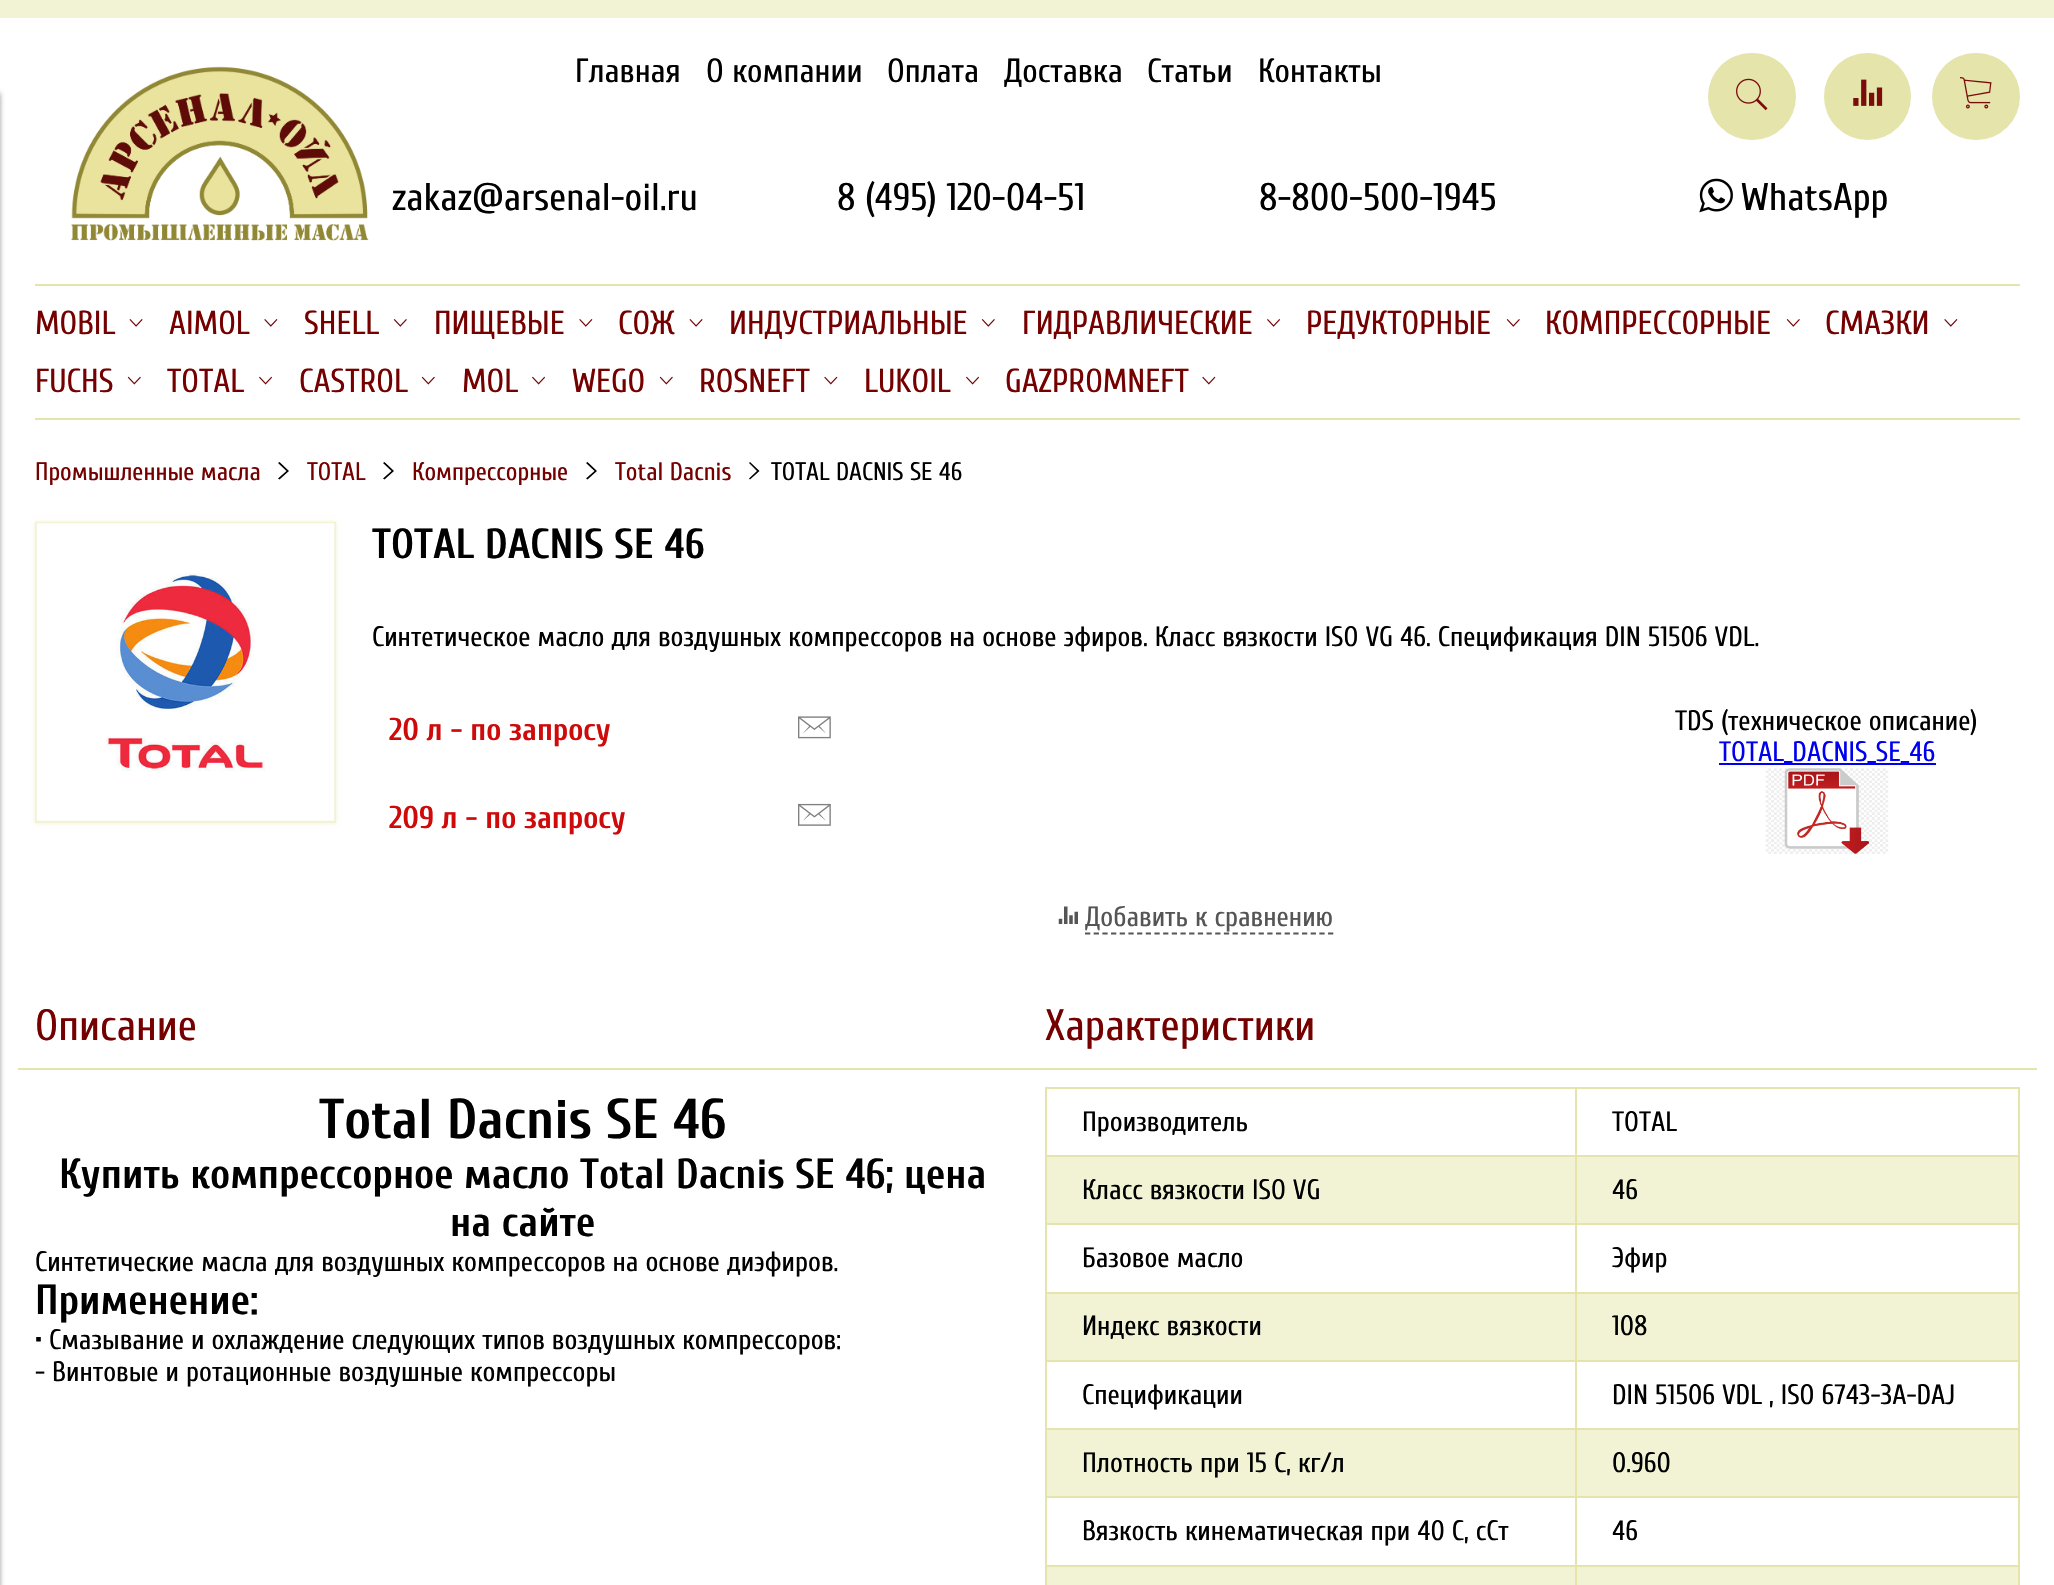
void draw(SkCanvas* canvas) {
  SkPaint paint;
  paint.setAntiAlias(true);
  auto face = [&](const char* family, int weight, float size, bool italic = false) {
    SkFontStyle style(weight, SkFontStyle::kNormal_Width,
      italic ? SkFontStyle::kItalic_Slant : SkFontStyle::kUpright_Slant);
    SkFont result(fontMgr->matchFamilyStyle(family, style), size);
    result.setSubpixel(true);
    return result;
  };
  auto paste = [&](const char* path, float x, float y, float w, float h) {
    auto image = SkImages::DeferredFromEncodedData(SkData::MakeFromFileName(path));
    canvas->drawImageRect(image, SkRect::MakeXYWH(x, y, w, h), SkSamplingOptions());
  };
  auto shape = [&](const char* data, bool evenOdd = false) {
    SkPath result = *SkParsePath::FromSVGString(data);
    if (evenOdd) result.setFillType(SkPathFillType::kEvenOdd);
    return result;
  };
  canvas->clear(0xfff2f2d5);
  paint.setColor(0xffffffff);
  canvas->drawRect(SkRect::MakeXYWH(0, 18, 2054, 1567), paint);
  paint.setColor(0x66000000);
  paint.setMaskFilter(SkMaskFilter::MakeBlur(kNormal_SkBlurStyle, 2.5f));
  canvas->drawRect(SkRect::MakeXYWH(-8, 93, 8, 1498), paint);
  paint.setMaskFilter(nullptr);
  paste("img/1.png", 71, 66, 298, 175);
  paint.setColor(0xffe5e4ab);
  canvas->drawRoundRect(SkRect::MakeXYWH(1708, 53, 88, 87), 43.5f, 43.5f, paint);
  paste("img/2.png", 1736, 78, 32, 33);
  canvas->drawCircle(1867.5f, 96.5f, 43.5f, paint);
  paste("img/3.png", 1853, 79, 30, 27);
  canvas->drawRoundRect(SkRect::MakeXYWH(1932, 53, 88, 87), 43.5f, 43.5f, paint);
  paste("img/4.png", 1960, 77, 32, 32);
  paste("img/5.png", 1699, 178, 34, 35);
  canvas->drawRect(SkRect::MakeXYWH(35, 284, 1985, 2), paint);
  paste("img/6.png", 129, 319, 14, 8);
  paste("img/7.png", 264, 319, 14, 8);
  paste("img/8.png", 393, 319, 14, 8);
  paste("img/7.png", 579, 319, 14, 8);
  paste("img/6.png", 689, 319, 14, 8);
  paste("img/8.png", 981, 319, 14, 8);
  paste("img/9.png", 1267, 319, 13, 8);
  paste("img/8.png", 1506, 319, 14, 8);
  paste("img/8.png", 1786, 319, 14, 8);
  paste("img/7.png", 1944, 319, 14, 8);
  paste("img/10.png", 127, 376, 14, 9);
  paste("img/11.png", 259, 376, 13, 9);
  paste("img/10.png", 421, 376, 14, 9);
  paste("img/11.png", 532, 376, 13, 9);
  paste("img/10.png", 659, 376, 14, 9);
  paste("img/12.png", 824, 376, 14, 9);
  paste("img/11.png", 966, 376, 13, 9);
  paste("img/12.png", 1202, 376, 14, 9);
  canvas->drawRect(SkRect::MakeXYWH(35, 418, 1985, 2), paint);
  paint.setColor(0xff000000);
  canvas->drawPath(shape("M278 463L279.5 462L289 471L279.5 479.5L278 478.5L286.5 471Z"), paint);
  canvas->drawPath(shape("M383 463L384.5 462L394 471L384.5 479.5L383 478.5L391.5 471Z"), paint);
  canvas->drawPath(shape("M586 463L587.5 462L597 471L587.5 479.5L586 478.5L594.5 471Z"), paint);
  canvas->drawPath(shape("M749 463L750 462L759.5 471L750 479.5L749 478.5L757 471Z"), paint);
  paint.setColor(0xfff2f1d5);
  paint.setMaskFilter(SkMaskFilter::MakeBlur(kNormal_SkBlurStyle, 2));
  canvas->drawRect(SkRect::MakeXYWH(35, 522, 301, 301), paint);
  paint.setMaskFilter(nullptr);
  paint.setStroke(true);
  paint.setStrokeWidth(2);
  paint.setColor(0xfff2f2d5);
  canvas->drawRect(SkRect::MakeXYWH(36, 523, 299, 299), paint);
  paste("img/13.png", 36, 523, 299, 298);
  paste("img/14.png", 798, 716, 33, 23);
  paste("img/15.png", 798, 803, 33, 23);
  paint.setStroke(false);
  paint.setColor(0xff0000ee);
  canvas->drawRect(SkRect::MakeXYWH(1719, 763, 217, 2), paint);
  paste("img/16.png", 1765, 768, 124, 86);
  paste("img/17.png", 1058, 906, 20, 18);
  paint.setStroke(true);
  paint.setStrokeWidth(1.8f);
  paint.setColor(0xff555555);
  paint.setPathEffect(SkDashPathEffect::Make({{5.25f, 3.43f}}, 0));
  canvas->drawPath(shape("M1085 933.5H1333.5"), paint);
  paint.setPathEffect(nullptr);
  paint.setStroke(false);
  {
    const struct { float x, y, w, h; SkColor color; } items[] = {
      {18, 1068, 2019, 2, 0xffe5e4ab},
      {1575, 1087, 445, 2, 0xffe5e4ab},
      {1575, 1155, 445, 2, 0xffe5e4ab},
      {1575, 1223, 445, 2, 0xffe5e4ab},
      {1575, 1292, 445, 2, 0xffe5e4ab},
      {1575, 1360, 445, 2, 0xffe5e4ab},
      {1575, 1428, 445, 2, 0xffe5e4ab},
      {1575, 1496, 445, 2, 0xffe5e4ab},
      {1575, 1565, 445, 2, 0xffe5e4ab},
      {1575, 1565, 2, 20, 0xffe5e4ab},
      {1045, 1565, 532, 2, 0xffe5e4ab},
      {1575, 1496, 2, 70, 0xffe5e4ab},
      {1045, 1496, 532, 2, 0xffe5e4ab},
      {1575, 1428, 2, 70, 0xffe5e4ab},
      {1045, 1428, 532, 2, 0xffe5e4ab},
      {1575, 1360, 2, 70, 0xffe5e4ab},
      {1045, 1360, 532, 2, 0xffe5e4ab},
      {1575, 1292, 2, 70, 0xffe5e4ab},
      {1045, 1292, 532, 2, 0xffe5e4ab},
      {1575, 1223, 2, 70, 0xffe5e4ab},
      {1045, 1223, 532, 2, 0xffe5e4ab},
      {1575, 1155, 2, 70, 0xffe5e4ab},
      {1045, 1155, 532, 2, 0xffe5e4ab},
      {1575, 1087, 2, 70, 0xffe5e4ab},
      {1045, 1087, 532, 2, 0xffe5e4ab},
      {1045, 1565, 2, 20, 0xffe5e4ab},
      {1045, 1496, 2, 70, 0xffe5e4ab},
      {1045, 1428, 2, 70, 0xffe5e4ab},
      {1045, 1360, 2, 70, 0xffe5e4ab},
      {1045, 1292, 2, 70, 0xffe5e4ab},
      {1045, 1223, 2, 70, 0xffe5e4ab},
      {1045, 1155, 2, 70, 0xffe5e4ab},
      {1045, 1087, 2, 70, 0xffe5e4ab},
      {2018, 1565, 2, 20, 0xffe5e4ab},
      {2018, 1496, 2, 70, 0xffe5e4ab},
      {2018, 1428, 2, 70, 0xffe5e4ab},
      {2018, 1360, 2, 70, 0xffe5e4ab},
      {2018, 1292, 2, 70, 0xffe5e4ab},
      {2018, 1223, 2, 70, 0xffe5e4ab},
      {2018, 1155, 2, 70, 0xffe5e4ab},
      {2018, 1087, 2, 70, 0xffe5e4ab},
      {1047, 1157, 528, 66, 0xfff2f2d5},
      {1577, 1157, 441, 66, 0xfff2f2d5},
      {1047, 1294, 528, 66, 0xfff2f2d5},
      {1577, 1294, 441, 66, 0xfff2f2d5},
      {1047, 1430, 528, 66, 0xfff2f2d5},
      {1577, 1430, 441, 66, 0xfff2f2d5},
      {1047, 1567, 528, 18, 0xfff2f2d5},
      {1577, 1567, 441, 18, 0xfff2f2d5},
    };
    for (auto [x, y, w, h, color] : items) {
      paint.setColor(color);
      canvas->drawRect(SkRect::MakeXYWH(x, y, w, h), paint);
    }
  }
  auto f0 = face("Cuprum", 400, 33.5f);
  paint.setColor(0xff000000);
  {
    const struct { const char* s; float x, y; } items[] = {
      {"Главная", 575, 82},
      {"О компании", 706, 82},
      {"Оплата", 887, 82},
      {"Доставка", 1004, 82},
      {"Статьи", 1147, 82},
      {"Контакты", 1258, 82},
    };
    for (auto [s, x, y] : items) {
      canvas->drawString(s, x, y, f0, paint);
    }
  }
  auto f1 = face("Cuprum", 400, 38.5f);
  {
    const struct { const char* s; float x, y; } items[] = {
      {"zakaz@arsenal-oil.ru", 392, 210},
      {"8 (495) 120-04-51", 837, 210},
      {"8-800-500-1945", 1259, 210},
      {"WhatsApp", 1741, 210},
    };
    for (auto [s, x, y] : items) {
      canvas->drawString(s, x, y, f1, paint);
    }
  }
  auto f2 = face("Cuprum", 400, 33.25f);
  paint.setColor(0xff750000);
  {
    const struct { const char* s; float x, y; } items[] = {
      {"MOBIL", 35, 334},
      {"AIMOL", 169, 334},
      {"SHELL", 304, 334},
      {"ПИЩЕВЫЕ", 434, 334},
      {"СОЖ", 618, 334},
      {"ИНДУСТРИАЛЬНЫЕ", 729, 334},
      {"ГИДРАВЛИЧЕСКИЕ", 1022, 334},
      {"РЕДУКТОРНЫЕ", 1306, 334},
      {"КОМПРЕССОРНЫЕ", 1545, 334},
      {"СМАЗКИ", 1825, 334},
      {"FUCHS", 35, 392},
      {"TOTAL", 167, 392},
      {"CASTROL", 299, 392},
      {"MOL", 462, 392},
      {"WEGO", 572, 392},
      {"ROSNEFT", 699, 392},
      {"LUKOIL", 864, 392},
      {"GAZPROMNEFT", 1005, 392},
    };
    for (auto [s, x, y] : items) {
      canvas->drawString(s, x, y, f2, paint);
    }
  }
  auto f3 = face("Cuprum", 400, 25.25f);
  {
    const struct { const char* s; float x, y; } items[] = {
      {"Промышленные масла", 35, 480},
      {"TOTAL", 307, 480},
      {"Компрессорные", 412, 480},
      {"Total Dacnis", 615, 480},
    };
    for (auto [s, x, y] : items) {
      canvas->drawString(s, x, y, f3, paint);
    }
  }
  paint.setColor(0xff000000);
  canvas->drawString("TOTAL DACNIS SE 46", 771, 480, f3, paint);
  auto f4 = face("Cuprum", 700, 42);
  canvas->drawString("TOTAL DACNIS SE 46", 372, 558, f4, paint);
  auto f5 = face("Cuprum", 400, 28);
  canvas->drawString("Синтетическое масло для воздушных компрессоров на основе эфиров. Класс вязкости ISO VG 46. Спецификация DIN 51506 VDL.", 372, 646, f5, paint);
  auto f6 = face("Cuprum", 700, 31.5f);
  paint.setColor(0xffce0a0a);
  canvas->drawString("20 л - по запросу", 389, 740, f6, paint);
  canvas->drawString("209 л - по запросу", 389, 828, f6, paint);
  paint.setColor(0xff000000);
  canvas->drawString("TDS (техническое описание)", 1675, 730, f5, paint);
  paint.setColor(0xff0000ee);
  canvas->drawString("TOTAL_DACNIS_SE_46", 1719, 761, f5, paint);
  paint.setColor(0xff555555);
  canvas->drawString("Добавить к сравнению", 1085, 926, f5, paint);
  auto f7 = face("Cuprum", 400, 43.75f);
  paint.setColor(0xff750000);
  canvas->drawString("Описание", 35, 1040, f7, paint);
  canvas->drawString("Характеристики", 1045, 1040, f7, paint);
  auto f8 = face("Cuprum", 700, 56);
  paint.setColor(0xff000000);
  canvas->drawString("Total Dacnis SE 46", 319, 1138, f8, paint);
  canvas->drawString("Купить компрессорное масло Total Dacnis SE 46; цена", 59, 1188, f4, paint);
  canvas->drawString("на сайте", 450, 1236, f4, paint);
  canvas->drawString("Синтетические масла для воздушных компрессоров на основе диэфиров.", 35, 1271, f5, paint);
  canvas->drawString("Применение:", 35, 1314, f4, paint);
  {
    const struct { const char* s; float x, y; } items[] = {
      {"• Смазывание и охлаждение следующих типов воздушных компрессоров:", 35, 1349},
      {"- Винтовые и ротационные воздушные компрессоры", 35, 1381},
      {"Производитель", 1082, 1131},
      {"TOTAL", 1612, 1131},
      {"Класс вязкости ISO VG", 1082, 1199},
      {"46", 1612, 1199},
      {"Базовое масло", 1082, 1267},
      {"Эфир", 1612, 1267},
      {"Индекс вязкости", 1082, 1335},
      {"108", 1612, 1335},
      {"Спецификации", 1082, 1404},
      {"DIN 51506 VDL , ISO 6743-3A-DAJ", 1612, 1404},
      {"Плотность при 15 С, кг/л", 1082, 1472},
      {"0.960", 1612, 1472},
      {"Вязкость кинематическая при 40 С, сСт", 1082, 1540},
      {"46", 1612, 1540},
    };
    for (auto [s, x, y] : items) {
      canvas->drawString(s, x, y, f5, paint);
    }
  }
}
